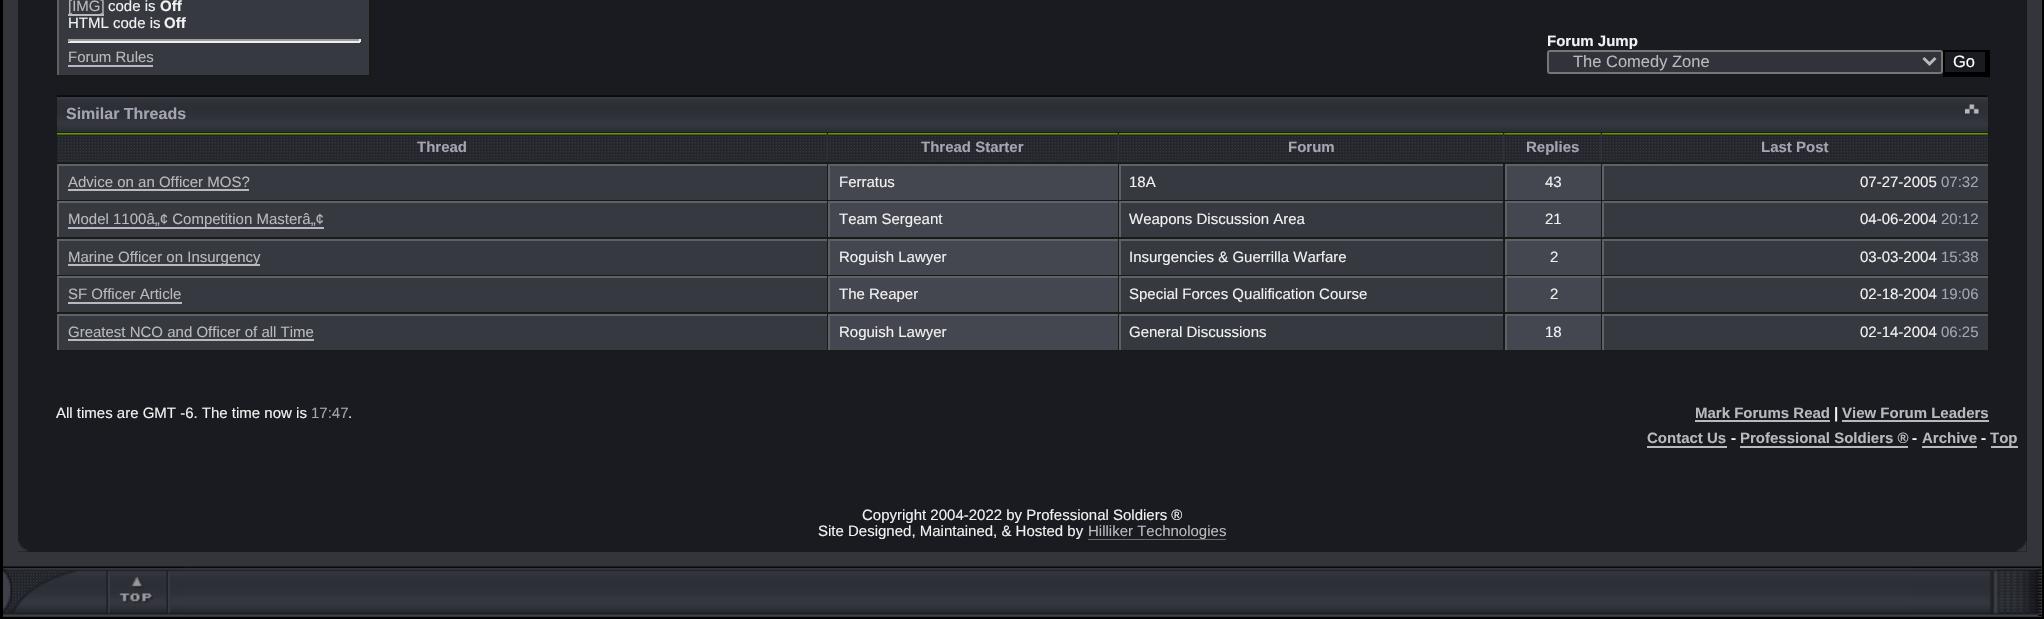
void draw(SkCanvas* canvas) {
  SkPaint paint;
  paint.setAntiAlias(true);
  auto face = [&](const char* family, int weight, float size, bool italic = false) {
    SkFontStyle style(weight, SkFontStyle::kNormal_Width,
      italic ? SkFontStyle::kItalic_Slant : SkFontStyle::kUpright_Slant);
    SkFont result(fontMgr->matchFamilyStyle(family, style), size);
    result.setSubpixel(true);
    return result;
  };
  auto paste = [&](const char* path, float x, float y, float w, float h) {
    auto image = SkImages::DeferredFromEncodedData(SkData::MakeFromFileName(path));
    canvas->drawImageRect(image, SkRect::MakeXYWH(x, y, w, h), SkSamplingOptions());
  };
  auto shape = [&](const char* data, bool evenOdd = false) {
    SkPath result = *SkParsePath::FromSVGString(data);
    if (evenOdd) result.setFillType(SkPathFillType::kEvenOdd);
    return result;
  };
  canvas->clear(0xff000000);
  {
    const struct { float x, y, w, h; SkColor color; } items[] = {
      {3, 0, 2039, 617, 0xff34353b},
      {18, 0, 2009, 552, 0xff191b21},
      {56, 0, 315, 77, 0xff181b16},
      {59, 0, 310, 75, 0xff363940},
      {57, 0, 2, 75, 0xff5f6168},
      {68, 14, 36, 2, 0xffb9b9bd},
      {68, 39, 292, 2, 0xff9f9f9f},
      {359, 39, 2, 3, 0xffeeeeee},
      {68, 41, 292, 2, 0xffeeeeee},
      {68, 39, 2, 3, 0xff9f9f9f},
      {68, 65, 85, 2, 0xffb9b9bd},
    };
    for (auto [x, y, w, h, color] : items) {
      paint.setColor(color);
      canvas->drawRect(SkRect::MakeXYWH(x, y, w, h), paint);
    }
  }
  paint.setColor(0xff31333b);
  canvas->drawRoundRect(SkRect::MakeXYWH(1548, 51, 394, 22), 2, 2, paint);
  paint.setStroke(true);
  paint.setStrokeWidth(2);
  paint.setColor(0xff767676);
  canvas->drawRoundRect(SkRect::MakeXYWH(1548, 51, 394, 22), 2, 2, paint);
  paint.setStrokeWidth(3);
  paint.setColor(0xffb9b9bd);
  canvas->drawPath(shape("M1923.5 58L1929.5 64L1935.5 58"), paint);
  paint.setStroke(false);
  {
    const struct { float x, y, w, h; SkColor color; } items[] = {
      {1943, 50, 46, 2, 0xff000000},
      {1985, 50, 5, 27, 0xff000000},
      {1943, 72, 46, 5, 0xff000000},
      {1943, 50, 2, 27, 0xff000000},
      {56, 95, 1933, 256, 0xff181b16},
      {57, 96, 1931, 36, 0xff31333b},
    };
    for (auto [x, y, w, h, color] : items) {
      paint.setColor(color);
      canvas->drawRect(SkRect::MakeXYWH(x, y, w, h), paint);
    }
  }
  paste("img/1.png", 57, 95, 1931, 37);
  paste("img/2.png", 1965, 104, 14, 10);
  canvas->drawRect(SkRect::MakeXYWH(57, 134, 1931, 28), paint);
  paste("img/3.png", 57, 133, 770, 29);
  paste("img/4.png", 828, 133, 290, 29);
  paste("img/5.png", 1119, 133, 384, 29);
  paste("img/6.png", 1504, 133, 97, 29);
  paste("img/7.png", 1602, 133, 386, 29);
  {
    const struct { float x, y, w, h; SkColor color; } items[] = {
      {59, 166, 768, 34, 0xff363940},
      {57, 164, 770, 2, 0xff5f6168},
      {57, 164, 2, 36, 0xff5f6168},
      {68, 189, 181, 2, 0xffb9b9bd},
      {830, 166, 288, 34, 0xff44474f},
      {828, 164, 290, 2, 0xff5f6168},
      {828, 164, 2, 36, 0xff5f6168},
      {1121, 166, 382, 34, 0xff363940},
      {1119, 164, 384, 2, 0xff5f6168},
      {1119, 164, 2, 36, 0xff5f6168},
      {1507, 166, 94, 34, 0xff44474f},
      {1505, 164, 96, 2, 0xff5f6168},
      {1505, 164, 2, 36, 0xff5f6168},
      {1604, 166, 384, 34, 0xff363940},
      {1602, 164, 386, 2, 0xff5f6168},
      {1602, 164, 2, 36, 0xff5f6168},
      {59, 203, 768, 34, 0xff363940},
      {57, 201, 770, 2, 0xff5f6168},
      {57, 201, 2, 36, 0xff5f6168},
      {68, 227, 256, 2, 0xffb9b9bd},
      {830, 203, 288, 34, 0xff44474f},
      {828, 201, 290, 2, 0xff5f6168},
      {828, 201, 2, 36, 0xff5f6168},
      {1121, 203, 382, 34, 0xff363940},
      {1119, 201, 384, 2, 0xff5f6168},
      {1119, 201, 2, 36, 0xff5f6168},
      {1507, 203, 94, 34, 0xff44474f},
      {1505, 201, 96, 2, 0xff5f6168},
      {1505, 201, 2, 36, 0xff5f6168},
      {1604, 203, 384, 34, 0xff363940},
      {1602, 201, 386, 2, 0xff5f6168},
      {1602, 201, 2, 36, 0xff5f6168},
      {59, 241, 768, 34, 0xff363940},
      {57, 239, 770, 2, 0xff5f6168},
      {57, 239, 2, 36, 0xff5f6168},
      {68, 264, 192, 2, 0xffb9b9bd},
      {830, 241, 288, 34, 0xff44474f},
      {828, 239, 290, 2, 0xff5f6168},
      {828, 239, 2, 36, 0xff5f6168},
      {1121, 241, 382, 34, 0xff363940},
      {1119, 239, 384, 2, 0xff5f6168},
      {1119, 239, 2, 36, 0xff5f6168},
      {1507, 241, 94, 34, 0xff44474f},
      {1505, 239, 96, 2, 0xff5f6168},
      {1505, 239, 2, 36, 0xff5f6168},
      {1604, 241, 384, 34, 0xff363940},
      {1602, 239, 386, 2, 0xff5f6168},
      {1602, 239, 2, 36, 0xff5f6168},
      {59, 278, 768, 34, 0xff363940},
      {57, 276, 770, 2, 0xff5f6168},
      {57, 276, 2, 36, 0xff5f6168},
      {68, 302, 114, 2, 0xffb9b9bd},
      {830, 278, 288, 34, 0xff44474f},
      {828, 276, 290, 2, 0xff5f6168},
      {828, 276, 2, 36, 0xff5f6168},
      {1121, 278, 382, 34, 0xff363940},
      {1119, 276, 384, 2, 0xff5f6168},
      {1119, 276, 2, 36, 0xff5f6168},
      {1507, 278, 94, 34, 0xff44474f},
      {1505, 276, 96, 2, 0xff5f6168},
      {1505, 276, 2, 36, 0xff5f6168},
      {1604, 278, 384, 34, 0xff363940},
      {1602, 276, 386, 2, 0xff5f6168},
      {1602, 276, 2, 36, 0xff5f6168},
      {59, 316, 768, 34, 0xff363940},
      {57, 314, 770, 2, 0xff5f6168},
      {57, 314, 2, 36, 0xff5f6168},
      {68, 339, 246, 2, 0xffb9b9bd},
      {830, 316, 288, 34, 0xff44474f},
      {828, 314, 290, 2, 0xff5f6168},
      {828, 314, 2, 36, 0xff5f6168},
      {1121, 316, 382, 34, 0xff363940},
      {1119, 314, 384, 2, 0xff5f6168},
      {1119, 314, 2, 36, 0xff5f6168},
      {1507, 316, 94, 34, 0xff44474f},
      {1505, 314, 96, 2, 0xff5f6168},
      {1505, 314, 2, 36, 0xff5f6168},
      {1604, 316, 384, 34, 0xff363940},
      {1602, 314, 386, 2, 0xff5f6168},
      {1602, 314, 2, 36, 0xff5f6168},
      {1695, 420, 135, 2, 0xffb9b9bd},
      {1842, 420, 147, 2, 0xffb9b9bd},
      {1647, 446, 80, 2, 0xffb9b9bd},
      {1740, 446, 168, 2, 0xffb9b9bd},
      {1922, 446, 55, 2, 0xffb9b9bd},
      {1991, 446, 27, 2, 0xffb9b9bd},
      {1088, 539, 138, 1, 0xffb9b9bd},
    };
    for (auto [x, y, w, h, color] : items) {
      paint.setColor(color);
      canvas->drawRect(SkRect::MakeXYWH(x, y, w, h), paint);
    }
  }
  paste("img/8.png", 18, 540, 11, 12);
  paste("img/10.png", 2016, 541, 11, 11);
  paste("img/12.png", 184, 566, 1727, 50);
  paste("img/11.png", 3, 566, 182, 50);
  paste("img/13.png", 1911, 566, 131, 50);
  auto f0 = face("Liberation Sans", 400, 15);
  canvas->drawString("[IMG]", 68, 11, f0, paint);
  paint.setColor(0xfff1f1f1);
  canvas->drawString("code is", 108, 11, f0, paint);
  auto f1 = face("Liberation Sans", 700, 15);
  canvas->drawString("Off", 160, 11, f1, paint);
  canvas->drawString("HTML code is", 68, 28, f0, paint);
  canvas->drawString("Off", 164, 28, f1, paint);
  paint.setColor(0xffb9b9bd);
  canvas->drawString("Forum Rules", 68, 62, f0, paint);
  paint.setColor(0xfff1f1f1);
  canvas->drawString("Forum Jump", 1547, 46, f1, paint);
  auto f2 = face("Liberation Sans", 400, 16.5f);
  paint.setColor(0xffb9b9bd);
  canvas->drawString("The Comedy Zone", 1573, 67, f2, paint);
  paint.setColor(0xffffffff);
  canvas->drawString("Go", 1953, 67, f2, paint);
  auto f3 = face("Liberation Sans", 700, 16);
  paint.setColor(0xffa5a5b2);
  canvas->drawString("Similar Threads", 66, 119, f3, paint);
  {
    const struct { const char* s; float x, y; } items[] = {
      {"Thread", 417, 152},
      {"Thread Starter", 921, 152},
      {"Forum", 1288, 152},
      {"Replies", 1526, 152},
      {"Last Post", 1761, 152},
    };
    for (auto [s, x, y] : items) {
      canvas->drawString(s, x, y, f1, paint);
    }
  }
  paint.setColor(0xffb9b9bd);
  canvas->drawString("Advice on an Officer MOS?", 68, 187, f0, paint);
  paint.setColor(0xfff1f1f1);
  {
    const struct { const char* s; float x, y; } items[] = {
      {"Ferratus", 839, 187},
      {"18A", 1129, 187},
      {"43", 1545, 187},
      {"07-27-2005", 1860, 187},
    };
    for (auto [s, x, y] : items) {
      canvas->drawString(s, x, y, f0, paint);
    }
  }
  paint.setColor(0xffa5a5b2);
  canvas->drawString("07:32", 1941, 187, f0, paint);
  paint.setColor(0xffb9b9bd);
  canvas->drawString("Model 1100â„¢ Competition Masterâ„¢", 68, 224, f0, paint);
  paint.setColor(0xfff1f1f1);
  {
    const struct { const char* s; float x, y; } items[] = {
      {"Team Sergeant", 839, 224},
      {"Weapons Discussion Area", 1129, 224},
      {"21", 1545, 224},
      {"04-06-2004", 1860, 224},
    };
    for (auto [s, x, y] : items) {
      canvas->drawString(s, x, y, f0, paint);
    }
  }
  paint.setColor(0xffa5a5b2);
  canvas->drawString("20:12", 1941, 224, f0, paint);
  paint.setColor(0xffb9b9bd);
  canvas->drawString("Marine Officer on Insurgency", 68, 262, f0, paint);
  paint.setColor(0xfff1f1f1);
  {
    const struct { const char* s; float x, y; } items[] = {
      {"Roguish Lawyer", 839, 262},
      {"Insurgencies & Guerrilla Warfare", 1129, 262},
      {"2", 1550, 262},
      {"03-03-2004", 1860, 262},
    };
    for (auto [s, x, y] : items) {
      canvas->drawString(s, x, y, f0, paint);
    }
  }
  paint.setColor(0xffa5a5b2);
  canvas->drawString("15:38", 1941, 262, f0, paint);
  paint.setColor(0xffb9b9bd);
  canvas->drawString("SF Officer Article", 68, 299, f0, paint);
  paint.setColor(0xfff1f1f1);
  {
    const struct { const char* s; float x, y; } items[] = {
      {"The Reaper", 839, 299},
      {"Special Forces Qualification Course", 1129, 299},
      {"2", 1550, 299},
      {"02-18-2004", 1860, 299},
    };
    for (auto [s, x, y] : items) {
      canvas->drawString(s, x, y, f0, paint);
    }
  }
  paint.setColor(0xffa5a5b2);
  canvas->drawString("19:06", 1941, 299, f0, paint);
  paint.setColor(0xffb9b9bd);
  canvas->drawString("Greatest NCO and Officer of all Time", 68, 337, f0, paint);
  paint.setColor(0xfff1f1f1);
  {
    const struct { const char* s; float x, y; } items[] = {
      {"Roguish Lawyer", 839, 337},
      {"General Discussions", 1129, 337},
      {"18", 1545, 337},
      {"02-14-2004", 1860, 337},
    };
    for (auto [s, x, y] : items) {
      canvas->drawString(s, x, y, f0, paint);
    }
  }
  paint.setColor(0xffa5a5b2);
  canvas->drawString("06:25", 1941, 337, f0, paint);
  paint.setColor(0xfff1f1f1);
  canvas->drawString("All times are GMT -6. The time now is", 56, 418, f0, paint);
  paint.setColor(0xffa5a5b2);
  canvas->drawString("17:47", 311, 418, f0, paint);
  paint.setColor(0xfff1f1f1);
  canvas->drawString(".", 348, 418, f0, paint);
  paint.setColor(0xffb9b9bd);
  canvas->drawString("Mark Forums Read", 1695, 418, f1, paint);
  paint.setColor(0xfff1f1f1);
  canvas->drawString("|", 1834, 418, f1, paint);
  paint.setColor(0xffb9b9bd);
  canvas->drawString("View Forum Leaders", 1842, 418, f1, paint);
  canvas->drawString("Contact Us", 1647, 443, f1, paint);
  paint.setColor(0xfff1f1f1);
  canvas->drawString("-", 1731, 443, f1, paint);
  paint.setColor(0xffb9b9bd);
  canvas->drawString("Professional Soldiers ®", 1740, 443, f1, paint);
  paint.setColor(0xfff1f1f1);
  canvas->drawString("-", 1912, 443, f1, paint);
  paint.setColor(0xffb9b9bd);
  canvas->drawString("Archive", 1922, 443, f1, paint);
  paint.setColor(0xfff1f1f1);
  canvas->drawString("-", 1981, 443, f1, paint);
  paint.setColor(0xffb9b9bd);
  canvas->drawString("Top", 1990, 443, f1, paint);
  paint.setColor(0xfff1f1f1);
  canvas->drawString("Copyright 2004-2022 by Professional Soldiers ®", 862, 520, f0, paint);
  canvas->drawString("Site Designed, Maintained, & Hosted by", 818, 536, f0, paint);
  paint.setColor(0xffb9b9bd);
  canvas->drawString("Hilliker Technologies", 1088, 536, f0, paint);
  paste("img/9.png", 882, 539, 344, 2);
}
